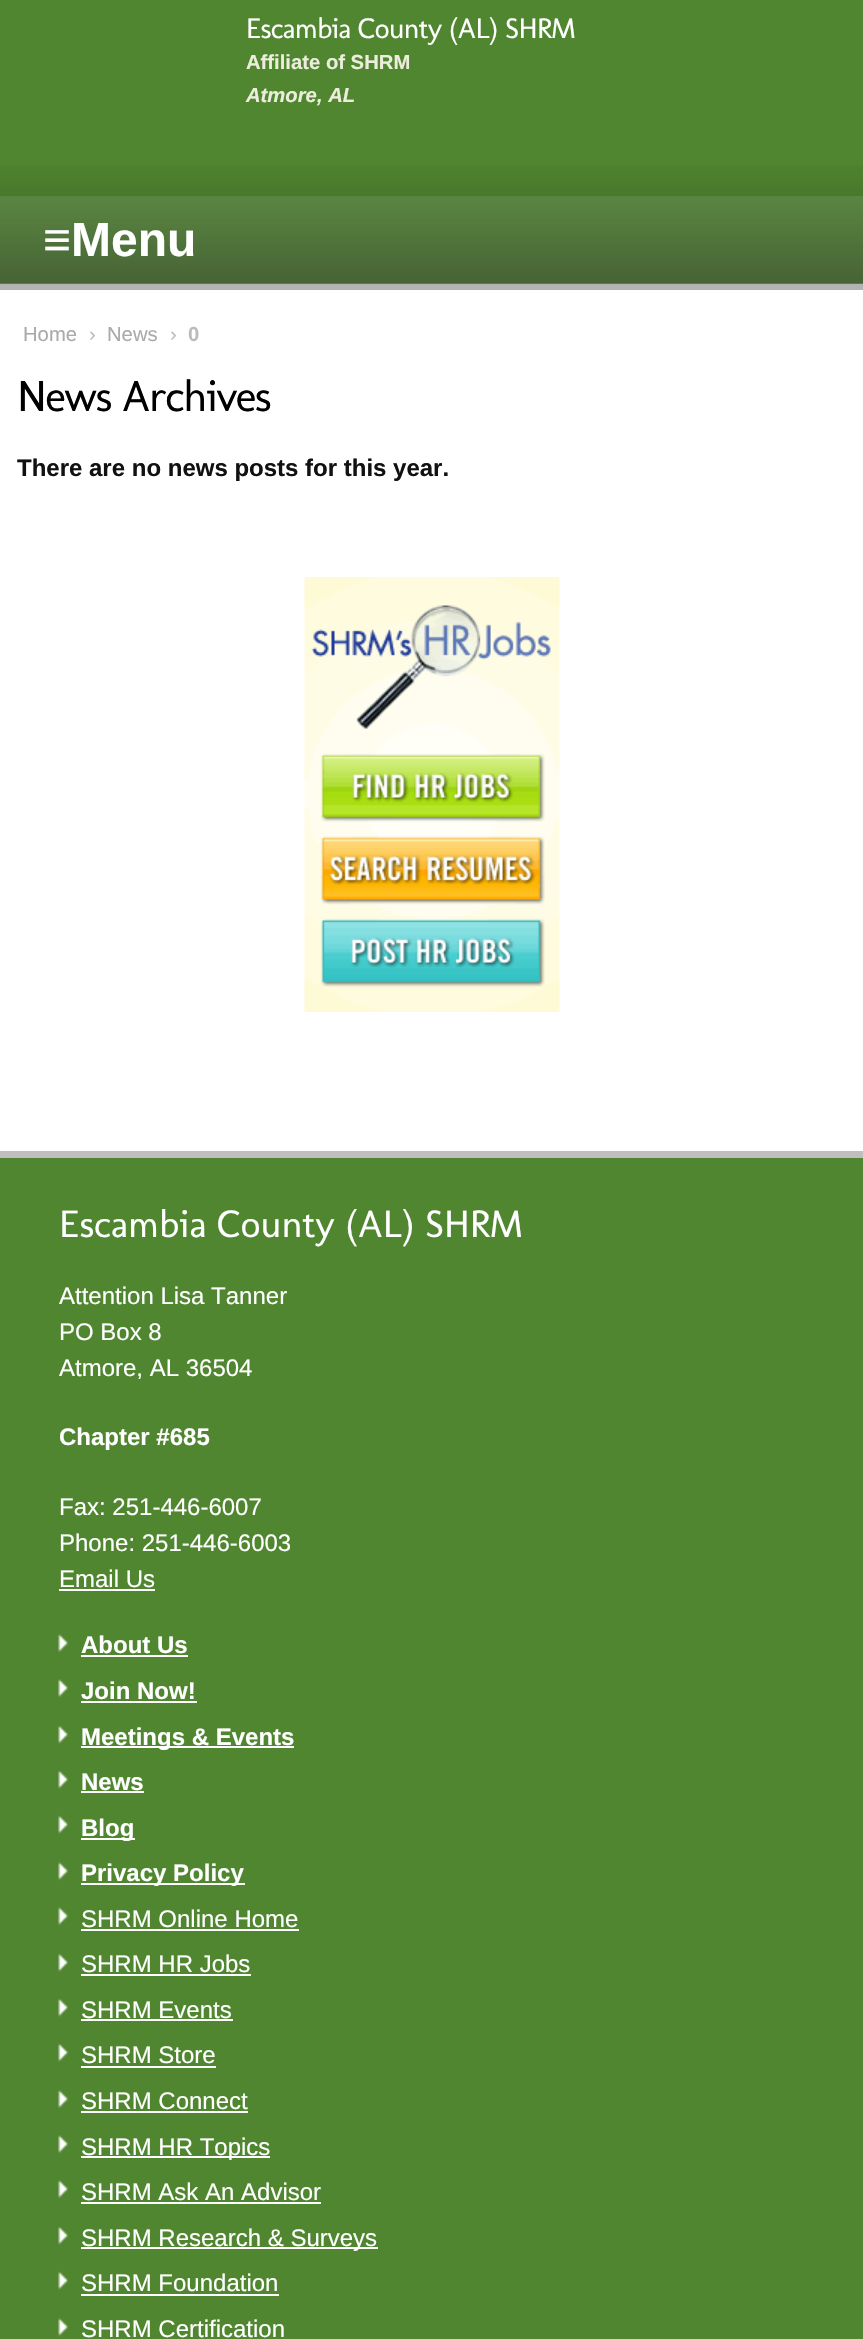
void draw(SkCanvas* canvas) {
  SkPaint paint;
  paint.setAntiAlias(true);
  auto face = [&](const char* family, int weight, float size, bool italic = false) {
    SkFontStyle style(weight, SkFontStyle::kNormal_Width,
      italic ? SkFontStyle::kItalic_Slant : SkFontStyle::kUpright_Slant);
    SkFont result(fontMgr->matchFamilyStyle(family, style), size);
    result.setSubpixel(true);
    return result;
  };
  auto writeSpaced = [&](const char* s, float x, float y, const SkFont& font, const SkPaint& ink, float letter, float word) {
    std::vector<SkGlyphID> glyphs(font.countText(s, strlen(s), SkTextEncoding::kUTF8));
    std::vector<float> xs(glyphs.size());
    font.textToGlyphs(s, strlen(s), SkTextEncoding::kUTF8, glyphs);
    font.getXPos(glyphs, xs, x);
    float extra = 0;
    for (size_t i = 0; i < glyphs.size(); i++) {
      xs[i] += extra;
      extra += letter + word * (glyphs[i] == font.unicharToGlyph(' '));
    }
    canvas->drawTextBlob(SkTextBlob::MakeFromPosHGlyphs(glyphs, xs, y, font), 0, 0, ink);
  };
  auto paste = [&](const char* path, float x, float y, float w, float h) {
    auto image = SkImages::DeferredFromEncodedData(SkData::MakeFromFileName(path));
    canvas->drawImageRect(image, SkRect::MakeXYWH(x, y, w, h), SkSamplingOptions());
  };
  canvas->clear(0xffffffff);
  paint.setColor(0xff508630);
  canvas->drawRect(SkRect::MakeXYWH(0, 0, 863, 284), paint);
  paste("img/1.png", 0, 165, 863, 118);
  paint.setColor(0xffb3b3b3);
  canvas->drawRect(SkRect::MakeXYWH(0, 284, 863, 6), paint);
  paint.setColor(0x1affffff);
  canvas->drawRect(SkRect::MakeXYWH(0, 196, 863, 87), paint);
  paste("img/2.png", 304, 577, 256, 435);
  {
    const struct { float x, y, w, h; SkColor color; } items[] = {
      {0, 1158, 863, 1181, 0xff508630},
      {0, 1151, 863, 7, 0xffbfbfbf},
      {59, 1589, 96, 2, 0xffffffff},
    };
    for (auto [x, y, w, h, color] : items) {
      paint.setColor(color);
      canvas->drawRect(SkRect::MakeXYWH(x, y, w, h), paint);
    }
  }
  paste("img/3.png", 58, 1634, 10, 19);
  canvas->drawRect(SkRect::MakeXYWH(81, 1655, 107, 2), paint);
  paste("img/3.png", 58, 1679, 10, 19);
  canvas->drawRect(SkRect::MakeXYWH(81, 1701, 116, 2), paint);
  paste("img/4.png", 58, 1725, 10, 19);
  canvas->drawRect(SkRect::MakeXYWH(81, 1746, 213, 2), paint);
  paste("img/4.png", 58, 1770, 10, 19);
  canvas->drawRect(SkRect::MakeXYWH(81, 1791, 63, 2), paint);
  paste("img/4.png", 58, 1815, 10, 19);
  canvas->drawRect(SkRect::MakeXYWH(81, 1838, 54, 2), paint);
  paste("img/3.png", 58, 1862, 10, 19);
  canvas->drawRect(SkRect::MakeXYWH(81, 1883, 164, 2), paint);
  paste("img/3.png", 58, 1907, 10, 19);
  canvas->drawRect(SkRect::MakeXYWH(81, 1929, 218, 2), paint);
  paste("img/4.png", 58, 1953, 10, 19);
  canvas->drawRect(SkRect::MakeXYWH(81, 1974, 170, 2), paint);
  paste("img/4.png", 58, 1998, 10, 19);
  canvas->drawRect(SkRect::MakeXYWH(81, 2019, 152, 2), paint);
  paste("img/4.png", 58, 2043, 10, 19);
  canvas->drawRect(SkRect::MakeXYWH(81, 2066, 135, 2), paint);
  paste("img/3.png", 58, 2090, 10, 19);
  canvas->drawRect(SkRect::MakeXYWH(81, 2111, 167, 2), paint);
  paste("img/3.png", 58, 2135, 10, 19);
  canvas->drawRect(SkRect::MakeXYWH(81, 2156, 189, 2), paint);
  paste("img/3.png", 58, 2180, 10, 19);
  canvas->drawRect(SkRect::MakeXYWH(81, 2202, 240, 2), paint);
  paste("img/4.png", 58, 2226, 10, 19);
  canvas->drawRect(SkRect::MakeXYWH(81, 2247, 297, 2), paint);
  paste("img/4.png", 58, 2271, 10, 19);
  canvas->drawRect(SkRect::MakeXYWH(81, 2294, 198, 2), paint);
  paste("img/3.png", 58, 2318, 10, 19);
  auto f0 = face("Molengo", 400, 28.75f);
  writeSpaced("Escambia County (AL) SHRM", 246, 38, f0, paint, -0.6f, 0);
  auto f1 = face("Liberation Sans", 700, 20.25f);
  paint.setColor(0xffeceddc);
  canvas->drawString("Affiliate of SHRM", 246, 69, f1, paint);
  auto f2 = face("Liberation Sans", 700, 20.25f, true);
  canvas->drawString("Atmore, AL", 246, 102, f2, paint);
  auto f3 = face("Liberation Sans", 700, 48);
  paint.setColor(0xffffffff);
  canvas->drawString("≡Menu", 43, 256, f3, paint);
  auto f4 = face("Liberation Sans", 400, 20.25f);
  paint.setColor(0xffaaaaaa);
  canvas->drawString("Home", 23, 341, f4, paint);
  paint.setColor(0xffbbbbbb);
  canvas->drawString("›", 89, 341, f4, paint);
  paint.setColor(0xffaaaaaa);
  canvas->drawString("News", 107, 341, f4, paint);
  paint.setColor(0xffbbbbbb);
  canvas->drawString("›", 170, 341, f4, paint);
  canvas->drawString("0", 188, 341, f1, paint);
  auto f5 = face("Molengo", 400, 44.25f);
  paint.setColor(0xff000000);
  writeSpaced("News Archives", 17, 411, f5, paint, -1.5f, 0);
  auto f6 = face("Liberation Sans", 700, 24);
  paint.setColor(0xff111111);
  canvas->drawString("There are no news posts for this year.", 17, 476, f6, paint);
  auto f7 = face("Molengo", 400, 38.75f);
  paint.setColor(0xffffffff);
  canvas->drawString("Escambia County (AL) SHRM", 59, 1237, f7, paint);
  auto f8 = face("Liberation Sans", 400, 24);
  {
    const struct { const char* s; float x, y; } items[] = {
      {"Attention Lisa Tanner", 59, 1304},
      {"PO Box 8", 59, 1340},
      {"Atmore, AL 36504", 59, 1376},
    };
    for (auto [s, x, y] : items) {
      canvas->drawString(s, x, y, f8, paint);
    }
  }
  canvas->drawString("Chapter #685", 59, 1445, f6, paint);
  {
    const struct { const char* s; float x, y; } items[] = {
      {"Fax: 251-446-6007", 59, 1515},
      {"Phone: 251-446-6003", 59, 1551},
      {"Email Us", 59, 1587},
    };
    for (auto [s, x, y] : items) {
      canvas->drawString(s, x, y, f8, paint);
    }
  }
  {
    const struct { const char* s; float x, y; } items[] = {
      {"About Us", 81, 1653},
      {"Join Now!", 81, 1699},
      {"Meetings & Events", 81, 1745},
      {"News", 81, 1790},
      {"Blog", 81, 1836},
      {"Privacy Policy", 81, 1881},
    };
    for (auto [s, x, y] : items) {
      canvas->drawString(s, x, y, f6, paint);
    }
  }
  {
    const struct { const char* s; float x, y; } items[] = {
      {"SHRM Online Home", 81, 1927},
      {"SHRM HR Jobs", 81, 1972},
      {"SHRM Events", 81, 2018},
      {"SHRM Store", 81, 2063},
      {"SHRM Connect", 81, 2109},
      {"SHRM HR Topics", 81, 2155},
      {"SHRM Ask An Advisor", 81, 2200},
      {"SHRM Research & Surveys", 81, 2246},
      {"SHRM Foundation", 81, 2291},
      {"SHRM Certification", 81, 2337},
    };
    for (auto [s, x, y] : items) {
      canvas->drawString(s, x, y, f8, paint);
    }
  }
}
